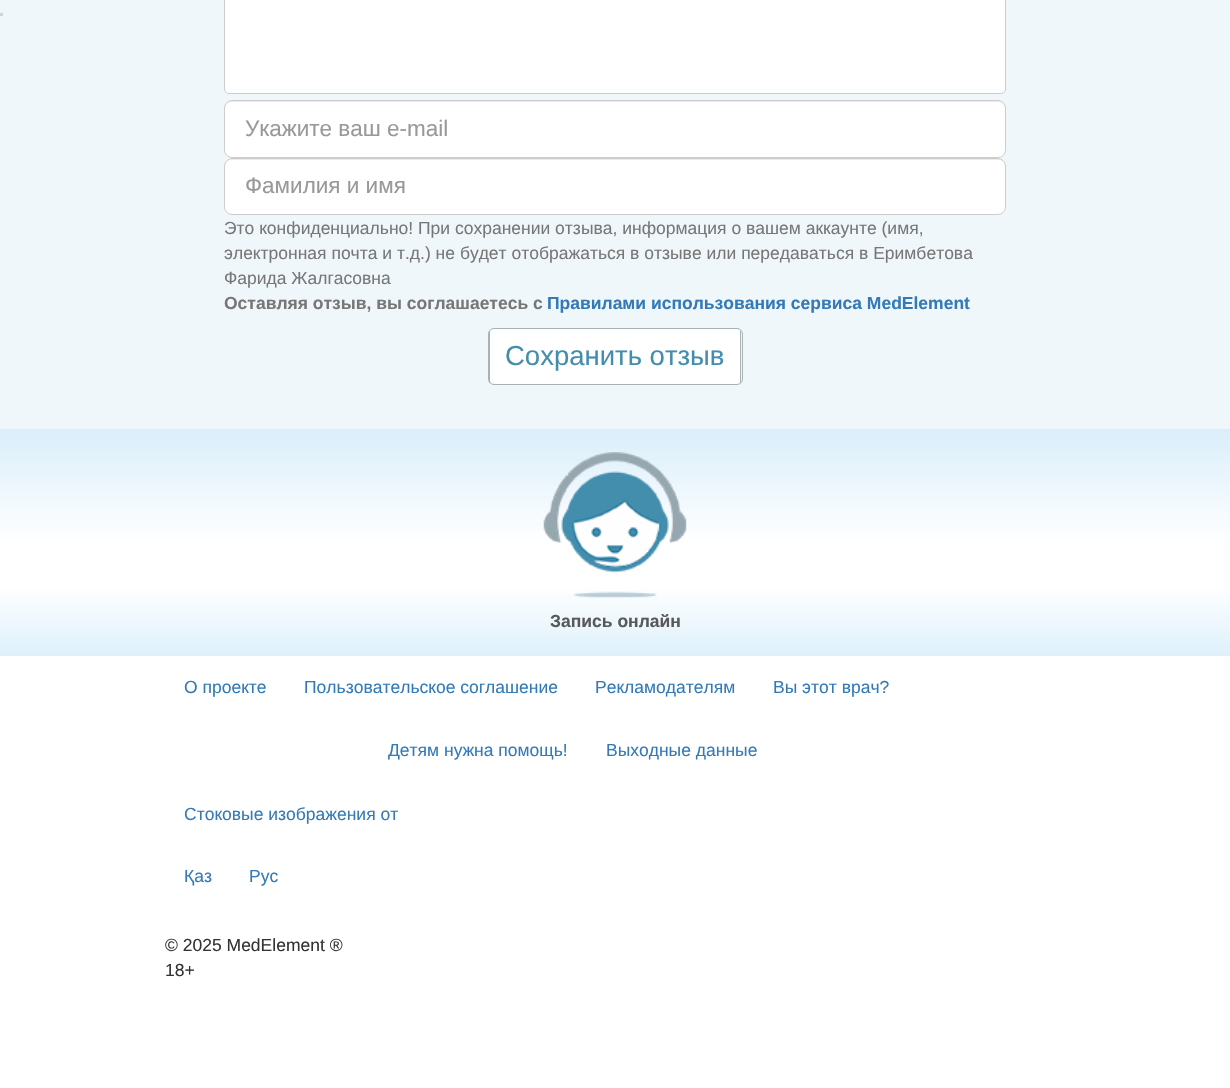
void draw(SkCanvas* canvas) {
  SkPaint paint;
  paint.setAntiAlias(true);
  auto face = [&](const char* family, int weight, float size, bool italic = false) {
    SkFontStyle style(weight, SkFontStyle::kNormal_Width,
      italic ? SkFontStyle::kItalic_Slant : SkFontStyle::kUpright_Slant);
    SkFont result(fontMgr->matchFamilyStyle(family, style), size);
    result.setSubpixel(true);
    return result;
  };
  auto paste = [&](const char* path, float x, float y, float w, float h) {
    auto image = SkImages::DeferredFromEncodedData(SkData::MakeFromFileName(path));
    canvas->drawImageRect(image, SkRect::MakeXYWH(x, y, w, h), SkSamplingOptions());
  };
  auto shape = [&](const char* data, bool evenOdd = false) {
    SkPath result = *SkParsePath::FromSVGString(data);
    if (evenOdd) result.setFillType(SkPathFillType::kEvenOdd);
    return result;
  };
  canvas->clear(0xffffffff);
  paint.setColor(0xfff0f7fb);
  canvas->drawRect(SkRect::MakeXYWH(0, 0, 1230, 429), paint);
  paint.setColor(0xffd3d3d3);
  canvas->drawRect(SkRect::MakeXYWH(0, 13, 3, 3), paint);
  paint.setColor(0xffffffff);
  canvas->drawRoundRect(SkRect::MakeXYWH(224.5f, -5.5f, 781, 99), 4.5f, 4.5f, paint);
  paint.setStroke(true);
  paint.setStrokeWidth(1);
  paint.setColor(0xffcccccc);
  canvas->drawRoundRect(SkRect::MakeXYWH(224.5f, -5.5f, 781, 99), 4.5f, 4.5f, paint);
  paint.setStroke(false);
  paint.setColor(0xffffffff);
  canvas->drawRoundRect(SkRect::MakeXYWH(224, 100, 782, 58), 8, 8, paint);
  paint.setColor(0xffececec);
  canvas->drawPath(shape("M231 102H999C1002 102 1005 105 1005 109V107C1005 104 1002 101 999 101H231C228 101 225 104 225 107V109C225 105 228 102 231 102Z"), paint);
  paint.setStroke(true);
  paint.setColor(0xffcccccc);
  canvas->drawRoundRect(SkRect::MakeXYWH(224.5f, 100.5f, 781, 57), 7.5f, 7.5f, paint);
  paint.setStroke(false);
  paint.setColor(0xffffffff);
  canvas->drawRoundRect(SkRect::MakeXYWH(224, 158, 782, 57), 8, 8, paint);
  paint.setColor(0xffececec);
  canvas->drawPath(shape("M231 160H999C1002 160 1005 163 1005 166V165C1005 162 1002 159 999 159H231C228 159 225 162 225 165V166C225 163 228 160 231 160Z"), paint);
  paint.setStroke(true);
  paint.setColor(0xffcccccc);
  canvas->drawRoundRect(SkRect::MakeXYWH(224.5f, 158.5f, 781, 56), 7.5f, 7.5f, paint);
  paint.setStroke(false);
  paint.setColor(0xffffffff);
  canvas->drawPath(shape("M494 329H736C738 329 740 331 740 334V379C740 382 738 384 736 384H494C492 384 490 382 490 379V334C490 331 492 329 494 329Z"), paint);
  paint.setStroke(true);
  paint.setColor(0xffa9b1b5);
  canvas->drawRoundRect(SkRect::MakeXYWH(488.5f, 328.5f, 254, 56), 5.5f, 5.5f, paint);
  paint.setStroke(false);
  canvas->drawRect(SkRect::MakeXYWH(740, 331, 1, 52), paint);
  canvas->drawRect(SkRect::MakeXYWH(489, 331, 1, 52), paint);
  {
    const SkColor colors[] = {0xffdaeefa, 0xffffffff, 0xffffffff, 0xffdef0fb};
    const float stops[] = {0, 0.5f, 0.69f, 1};
    const SkPoint ends[] = {{615, 429}, {615, 656}};
    paint.setShader(SkGradientShader::MakeLinear(ends, colors, stops, 4, SkTileMode::kClamp));
    paint.setAlpha(255);
  }
  canvas->drawRect(SkRect::MakeXYWH(0, 429, 1230, 227), paint);
  paste("img/1.png", 543, 452, 144, 146);
  auto f0 = face("Liberation Sans", 400, 22.5f);
  paint.setShader(nullptr);
  paint.setColor(0xff999999);
  canvas->drawString("Укажите ваш e-mail", 245, 136, f0, paint);
  canvas->drawString("Фамилия и имя", 245, 193, f0, paint);
  auto f1 = face("Liberation Sans", 400, 17.5f);
  paint.setColor(0xff777777);
  {
    const struct { const char* s; float x, y; } items[] = {
      {"Это конфиденциально! При сохранении отзыва, информация о вашем аккаунте (имя,", 224, 234},
      {"электронная почта и т.д.) не будет отображаться в отзыве или передаваться в Еримбетова", 224, 259},
      {"Фарида Жалгасовна", 224, 284},
    };
    for (auto [s, x, y] : items) {
      canvas->drawString(s, x, y, f1, paint);
    }
  }
  auto f2 = face("Liberation Sans", 700, 17.5f);
  canvas->drawString("Оставляя отзыв, вы соглашаетесь с", 224, 309, f2, paint);
  paint.setColor(0xff337ab7);
  canvas->drawString("Правилами использования сервиса MedElement", 547, 309, f2, paint);
  auto f3 = face("Liberation Sans", 400, 27.5f);
  paint.setColor(0xff438dad);
  canvas->drawString("Сохранить отзыв", 505, 365, f3, paint);
  paint.setColor(0xff58595b);
  canvas->drawString("Запись онлайн", 550, 627, f2, paint);
  paint.setColor(0xff337ab7);
  {
    const struct { const char* s; float x, y; } items[] = {
      {"О проекте", 184, 693},
      {"Пользовательское соглашение", 304, 693},
      {"Рекламодателям", 595, 693},
      {"Вы этот врач?", 773, 693},
      {"Детям нужна помощь!", 388, 756},
      {"Выходные данные", 606, 756},
      {"Стоковые изображения от", 184, 820},
      {"Қаз", 184, 882},
      {"Рус", 249, 882},
    };
    for (auto [s, x, y] : items) {
      canvas->drawString(s, x, y, f1, paint);
    }
  }
  paint.setColor(0xff333333);
  canvas->drawString("© 2025 MedElement ®", 165, 951, f1, paint);
  canvas->drawString("18+", 165, 976, f1, paint);
}
